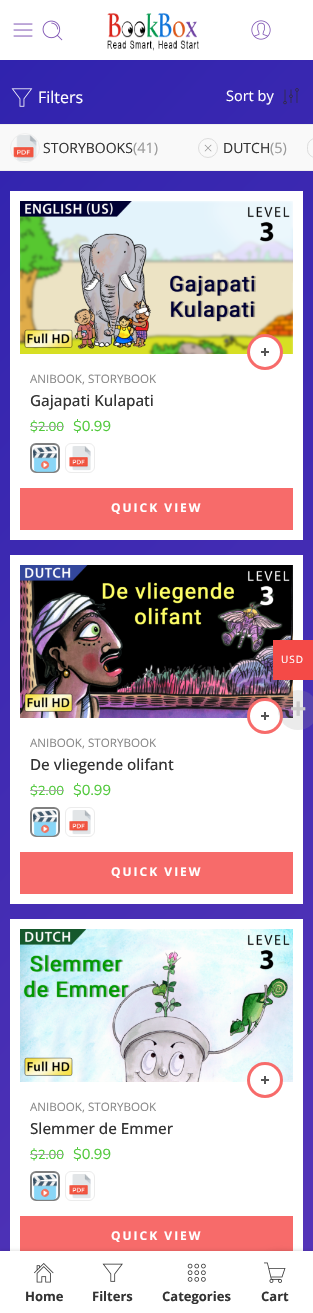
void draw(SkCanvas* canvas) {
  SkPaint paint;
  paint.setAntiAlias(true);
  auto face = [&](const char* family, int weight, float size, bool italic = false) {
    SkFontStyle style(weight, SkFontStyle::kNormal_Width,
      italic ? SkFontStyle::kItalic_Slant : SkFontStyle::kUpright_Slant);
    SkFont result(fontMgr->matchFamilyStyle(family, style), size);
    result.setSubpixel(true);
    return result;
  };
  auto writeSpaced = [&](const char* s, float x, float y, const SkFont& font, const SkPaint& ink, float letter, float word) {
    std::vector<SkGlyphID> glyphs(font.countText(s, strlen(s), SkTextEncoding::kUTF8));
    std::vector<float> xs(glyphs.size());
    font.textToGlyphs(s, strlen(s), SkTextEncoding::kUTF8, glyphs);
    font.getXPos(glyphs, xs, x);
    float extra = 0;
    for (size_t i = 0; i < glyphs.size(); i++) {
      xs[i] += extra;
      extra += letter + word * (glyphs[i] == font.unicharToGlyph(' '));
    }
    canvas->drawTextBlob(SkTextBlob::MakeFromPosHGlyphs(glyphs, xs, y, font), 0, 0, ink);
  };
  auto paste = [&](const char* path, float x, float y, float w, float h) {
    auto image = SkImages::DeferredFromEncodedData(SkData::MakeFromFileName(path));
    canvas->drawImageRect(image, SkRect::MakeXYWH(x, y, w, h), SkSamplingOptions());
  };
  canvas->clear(0xffffffff);
  paste("img/1.png", 13, 23, 20, 14);
  paste("img/2.png", 42, 20, 21, 21);
  paste("img/3.png", 107, 13, 92, 38);
  paste("img/4.png", 251, 20, 20, 20);
  {
    const SkColor colors[] = {0xff3023ae, 0xffc86dd7};
    const float stops[] = {0, 1};
    const SkPoint ends[] = {{-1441, 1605}, {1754, 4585}};
    paint.setShader(SkGradientShader::MakeLinear(ends, colors, stops, 2, SkTileMode::kClamp));
    paint.setAlpha(255);
  }
  canvas->drawRect(SkRect::MakeXYWH(0, 60, 313, 1191), paint);
  paste("img/5.png", 11, 88, 22, 19);
  paste("img/6.png", 283, 88, 16, 17);
  paint.setShader(nullptr);
  {
    const struct { float x, y, w, h; SkColor color; } items[] = {
      {0, 125, 313, 45, 0xfff9f9f9},
      {0, 124, 313, 1, 0xffeeeeee},
      {0, 170, 313, 1, 0xffeeeeee},
    };
    for (auto [x, y, w, h, color] : items) {
      paint.setColor(color);
      canvas->drawRect(SkRect::MakeXYWH(x, y, w, h), paint);
    }
  }
  paint.setStroke(true);
  paint.setStrokeWidth(1);
  paint.setColor(0xffefefef);
  canvas->drawCircle(25, 148, 14.5f, paint);
  paste("img/7.png", 13, 135, 24, 26);
  paint.setColor(0xffdddddd);
  canvas->drawCircle(208, 148, 9.5f, paint);
  paste("img/8.png", 204, 144, 8, 8);
  canvas->drawRoundRect(SkRect::MakeXYWH(307.5f, 138.5f, 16, 19), 9.5f, 9.5f, paint);
  paint.setStroke(false);
  paint.setColor(0xffffffff);
  canvas->drawRect(SkRect::MakeXYWH(10, 191, 293, 349), paint);
  paste("img/9.png", 20, 201, 273, 153);
  paint.setColor(0xfff76b6a);
  canvas->drawCircle(265, 352, 18, paint);
  paint.setColor(0xffffffff);
  canvas->drawCircle(265, 352, 15, paint);
  paint.setColor(0xff555555);
  canvas->drawRect(SkRect::MakeXYWH(261, 351, 8, 2), paint);
  canvas->drawRect(SkRect::MakeXYWH(264, 348, 2, 8), paint);
  paint.setStroke(true);
  paint.setStrokeWidth(2);
  paint.setColor(0xff808080);
  canvas->drawRoundRect(SkRect::MakeXYWH(31, 444, 28, 28), 5, 5, paint);
  paste("img/10.png", 33, 446, 24, 26);
  paint.setStrokeWidth(1);
  paint.setColor(0xffececec);
  canvas->drawRoundRect(SkRect::MakeXYWH(65.5f, 443.5f, 29, 29), 5.5f, 5.5f, paint);
  paste("img/11.png", 69, 446, 22, 25);
  paint.setStroke(false);
  paint.setColor(0xfff76b6a);
  canvas->drawRect(SkRect::MakeXYWH(20, 488, 273, 42), paint);
  paint.setColor(0xffffffff);
  canvas->drawRect(SkRect::MakeXYWH(10, 555, 293, 349), paint);
  paste("img/12.png", 20, 565, 273, 153);
  paint.setColor(0xfff76b6a);
  canvas->drawCircle(265, 716, 18, paint);
  paint.setColor(0xffffffff);
  canvas->drawCircle(265, 716, 15, paint);
  paint.setColor(0xff555555);
  canvas->drawRect(SkRect::MakeXYWH(261, 715, 8, 2), paint);
  canvas->drawRect(SkRect::MakeXYWH(264, 712, 2, 8), paint);
  paint.setStroke(true);
  paint.setStrokeWidth(2);
  paint.setColor(0xff808080);
  canvas->drawRoundRect(SkRect::MakeXYWH(31, 808, 28, 28), 5, 5, paint);
  paste("img/10.png", 33, 810, 24, 26);
  paint.setStrokeWidth(1);
  paint.setColor(0xffececec);
  canvas->drawRoundRect(SkRect::MakeXYWH(65.5f, 807.5f, 29, 29), 5.5f, 5.5f, paint);
  paste("img/13.png", 69, 810, 22, 25);
  paint.setStroke(false);
  paint.setColor(0xfff76b6a);
  canvas->drawRect(SkRect::MakeXYWH(20, 852, 273, 42), paint);
  paint.setColor(0xffffffff);
  canvas->drawRect(SkRect::MakeXYWH(10, 919, 293, 332), paint);
  paste("img/14.png", 20, 929, 273, 153);
  paint.setColor(0xfff76b6a);
  canvas->drawCircle(265, 1080, 18, paint);
  paint.setColor(0xffffffff);
  canvas->drawCircle(265, 1080, 15, paint);
  paint.setColor(0xff555555);
  canvas->drawRect(SkRect::MakeXYWH(261, 1079, 8, 2), paint);
  canvas->drawRect(SkRect::MakeXYWH(264, 1076, 2, 8), paint);
  paint.setStroke(true);
  paint.setStrokeWidth(2);
  paint.setColor(0xff808080);
  canvas->drawRoundRect(SkRect::MakeXYWH(31, 1172, 28, 28), 5, 5, paint);
  paste("img/15.png", 33, 1174, 24, 26);
  paint.setStrokeWidth(1);
  paint.setColor(0xffececec);
  canvas->drawRoundRect(SkRect::MakeXYWH(65.5f, 1171.5f, 29, 29), 5.5f, 5.5f, paint);
  paste("img/11.png", 69, 1174, 22, 25);
  paint.setStroke(false);
  paint.setColor(0xfff76b6a);
  canvas->drawRect(SkRect::MakeXYWH(20, 1216, 273, 35), paint);
  paint.setColor(0xfff44a47);
  canvas->drawRect(SkRect::MakeXYWH(273, 640, 40, 40), paint);
  paint.setColor(0x33999999);
  canvas->drawCircle(298, 710, 20, paint);
  paint.setColor(0x1a000000);
  paint.setMaskFilter(SkMaskFilter::MakeBlur(kNormal_SkBlurStyle, 5));
  canvas->drawRoundRect(SkRect::MakeXYWH(258, 1253, 47, 47), 23.5f, 23.5f, paint);
  paint.setMaskFilter(nullptr);
  paint.setMaskFilter(SkMaskFilter::MakeBlur(kNormal_SkBlurStyle, 1.5f));
  canvas->drawRect(SkRect::MakeXYWH(0, 1250, 313, 62), paint);
  paint.setMaskFilter(nullptr);
  paint.setColor(0xffffffff);
  canvas->drawRect(SkRect::MakeXYWH(0, 1251, 313, 62), paint);
  paste("img/16.png", 34, 1263, 20, 20);
  paste("img/17.png", 102, 1263, 21, 19);
  paste("img/18.png", 187, 1263, 19, 19);
  paste("img/19.png", 264, 1262, 22, 21);
  auto f0 = face("Open Sans", 400, 16);
  canvas->drawString("Filters", 38, 103, f0, paint);
  auto f1 = face("Open Sans", 400, 14.5f);
  canvas->drawString("Sort by", 226, 101, f1, paint);
  auto f2 = face("Open Sans", 400, 14);
  paint.setColor(0xff333333);
  canvas->drawString("STORYBOOKS", 43, 153, f2, paint);
  paint.setColor(0xff999999);
  canvas->drawString("(41)", 133, 153, f1, paint);
  paint.setColor(0xff333333);
  canvas->drawString("DUTCH", 223, 153, f2, paint);
  paint.setColor(0xff999999);
  canvas->drawString("(5)", 270, 153, f1, paint);
  auto f3 = face("Open Sans", 400, 11.6f);
  paint.setColor(0xff888888);
  canvas->drawString("ANIBOOK, STORYBOOK", 30, 383, f3, paint);
  auto f4 = face("Open Sans", 500, 15.25f);
  paint.setColor(0xff333333);
  canvas->drawString("Gajapati Kulapati", 30, 406, f4, paint);
  auto f5 = face("Nunito Sans", 400, 13);
  paint.setColor(0xff51c93c);
  canvas->drawString("$2.00", 30, 431, f5, paint);
  paint.setColor(0xffaaaaaa);
  canvas->drawRect(SkRect::MakeXYWH(30, 426, 34, 1), paint);
  auto f6 = face("Nunito Sans", 400, 14.5f);
  paint.setColor(0xff51c93c);
  canvas->drawString("$0.99", 73, 431, f6, paint);
  auto f7 = face("Open Sans", 700, 12);
  paint.setColor(0xffffffff);
  writeSpaced("QUICK VIEW", 111, 512, f7, paint, 2, 0);
  paint.setColor(0xff888888);
  canvas->drawString("ANIBOOK, STORYBOOK", 30, 747, f3, paint);
  paint.setColor(0xff333333);
  canvas->drawString("De vliegende olifant", 30, 770, f4, paint);
  paint.setColor(0xff51c93c);
  canvas->drawString("$2.00", 30, 795, f5, paint);
  paint.setColor(0xffaaaaaa);
  canvas->drawRect(SkRect::MakeXYWH(30, 790, 34, 1), paint);
  paint.setColor(0xff51c93c);
  canvas->drawString("$0.99", 73, 795, f6, paint);
  paint.setColor(0xffffffff);
  writeSpaced("QUICK VIEW", 111, 876, f7, paint, 2, 0);
  paint.setColor(0xff888888);
  canvas->drawString("ANIBOOK, STORYBOOK", 30, 1111, f3, paint);
  paint.setColor(0xff333333);
  canvas->drawString("Slemmer de Emmer", 30, 1134, f4, paint);
  paint.setColor(0xff51c93c);
  canvas->drawString("$2.00", 30, 1159, f5, paint);
  paint.setColor(0xffaaaaaa);
  canvas->drawRect(SkRect::MakeXYWH(30, 1154, 34, 1), paint);
  paint.setColor(0xff51c93c);
  canvas->drawString("$0.99", 73, 1159, f6, paint);
  paint.setColor(0xffffffff);
  writeSpaced("QUICK VIEW", 111, 1240, f7, paint, 2, 0);
  auto f8 = face("Open Sans", 400, 10);
  writeSpaced("USD", 281, 663, f8, paint, 1, 0);
  auto f9 = face("Liberation Sans", 700, 28);
  paint.setColor(0xffcccccc);
  canvas->drawString("+", 290, 718, f9, paint);
  auto f10 = face("Open Sans", 700, 13);
  paint.setColor(0xff333333);
  {
    const struct { const char* s; float x, y; } items[] = {
      {"Home", 25, 1301},
      {"Filters", 92, 1301},
      {"Categories", 162, 1301},
      {"Cart", 261, 1301},
    };
    for (auto [s, x, y] : items) {
      canvas->drawString(s, x, y, f10, paint);
    }
  }
}
